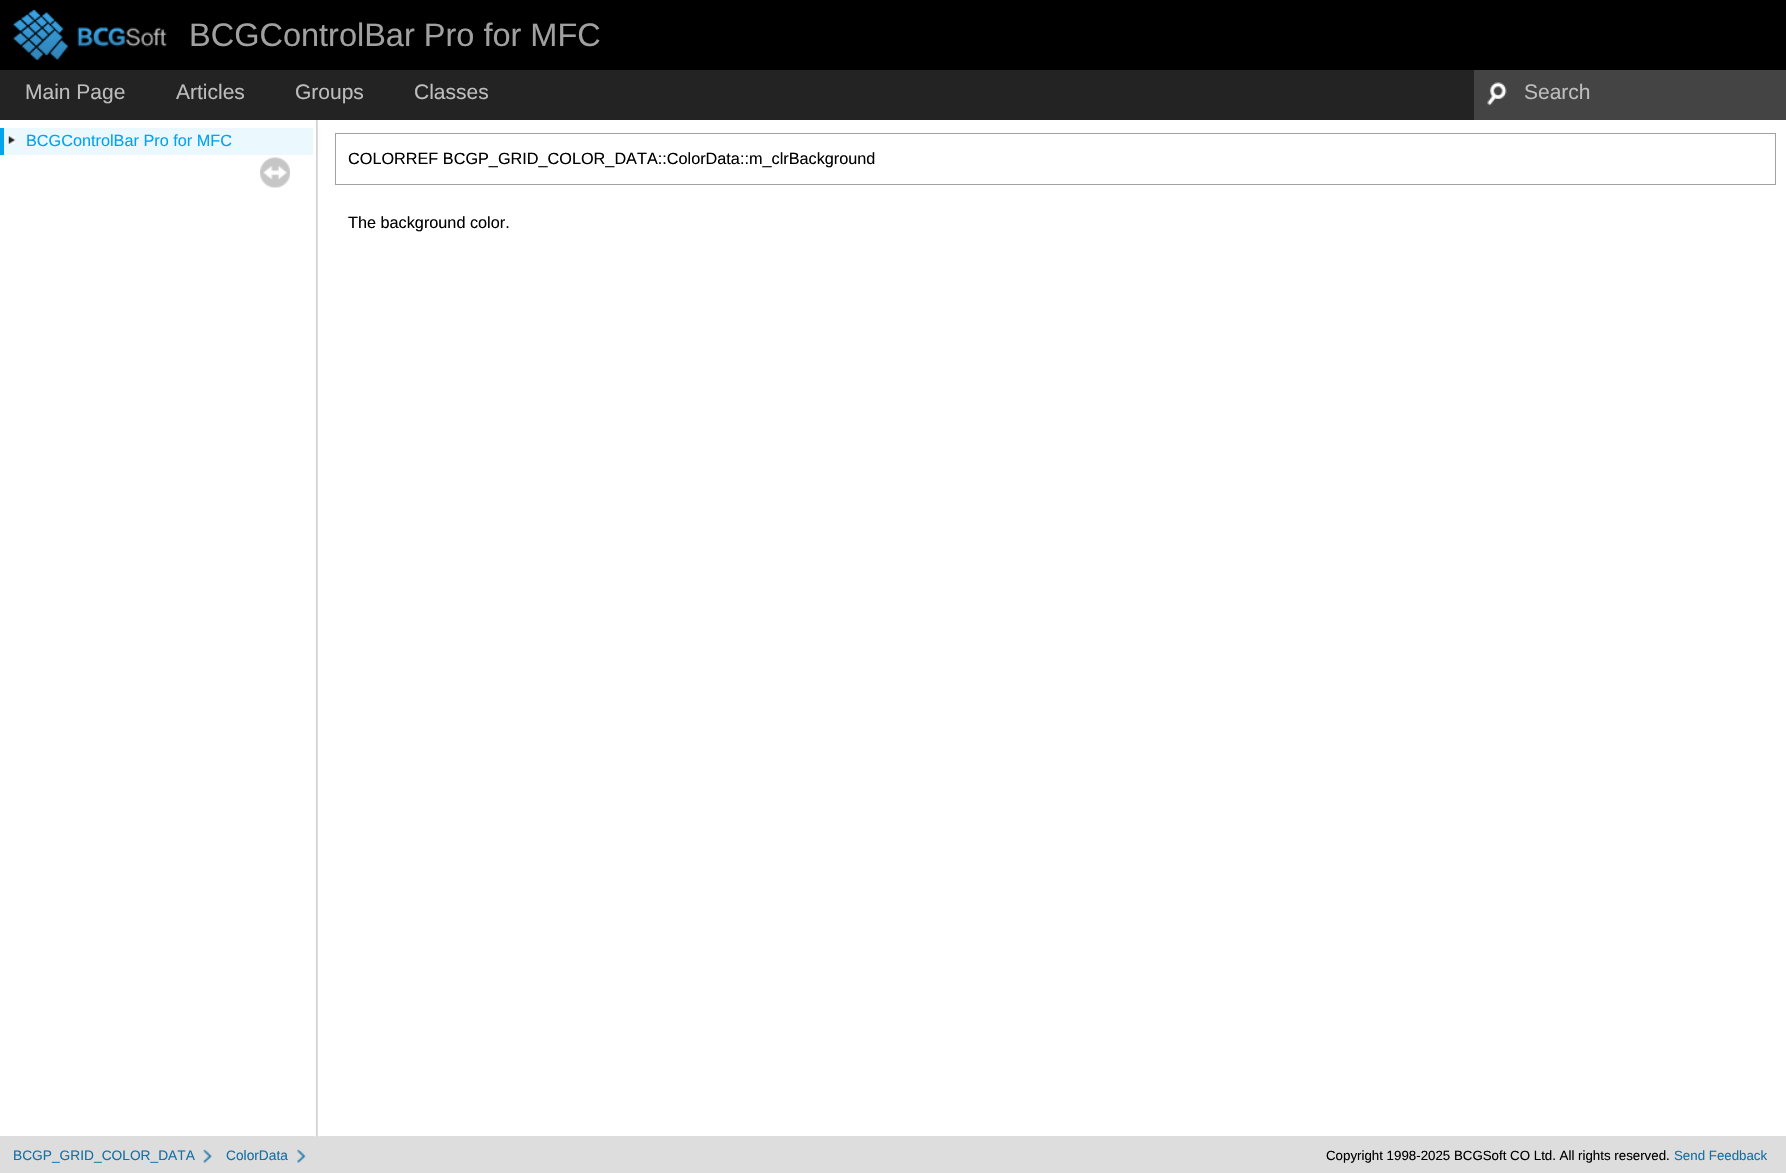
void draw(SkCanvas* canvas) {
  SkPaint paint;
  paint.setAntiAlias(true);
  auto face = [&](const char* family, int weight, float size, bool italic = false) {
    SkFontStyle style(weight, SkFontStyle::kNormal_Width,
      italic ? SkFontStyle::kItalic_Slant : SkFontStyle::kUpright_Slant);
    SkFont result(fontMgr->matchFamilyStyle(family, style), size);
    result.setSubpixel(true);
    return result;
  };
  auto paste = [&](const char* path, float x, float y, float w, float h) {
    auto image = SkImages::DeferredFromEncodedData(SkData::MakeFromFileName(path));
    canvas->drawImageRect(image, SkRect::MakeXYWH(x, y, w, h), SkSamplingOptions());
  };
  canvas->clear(0xffffffff);
  paint.setColor(0xff000000);
  canvas->drawRect(SkRect::MakeXYWH(0, 0, 1786, 70), paint);
  paste("img/1.png", 13, 10, 154, 50);
  paint.setColor(0xff232323);
  canvas->drawRect(SkRect::MakeXYWH(0, 70, 1474, 50), paint);
  paint.setColor(0xff444444);
  canvas->drawRect(SkRect::MakeXYWH(1474, 70, 312, 50), paint);
  paste("img/2.png", 1487, 82, 20, 24);
  paint.setColor(0xffebf8fe);
  canvas->drawRect(SkRect::MakeXYWH(4, 128, 309, 27), paint);
  paint.setColor(0xff00a4ef);
  canvas->drawRect(SkRect::MakeXYWH(0, 128, 4, 27), paint);
  paste("img/3.png", 8, 136, 8, 8);
  paste("img/4.png", 260, 157, 30, 31);
  paint.setColor(0xffdddddd);
  canvas->drawRect(SkRect::MakeXYWH(0, 1136, 1786, 37), paint);
  paste("img/5.png", 314, 120, 6, 1017);
  paint.setStroke(true);
  paint.setStrokeWidth(1);
  paint.setColor(0xffa2a2a2);
  canvas->drawRect(SkRect::MakeXYWH(335.5f, 133.5f, 1440, 51), paint);
  paste("img/6.png", 203, 1149, 9, 14);
  paste("img/7.png", 297, 1149, 9, 14);
  auto f0 = face("Liberation Sans", 400, 32.5f);
  paint.setStroke(false);
  paint.setColor(0xffa0a0a0);
  canvas->drawString("BCGControlBar Pro for MFC", 189, 46, f0, paint);
  auto f1 = face("Liberation Sans", 400, 21);
  paint.setColor(0xffbdbdbd);
  {
    const struct { const char* s; float x, y; } items[] = {
      {"Main Page", 25, 99},
      {"Articles", 176, 99},
      {"Groups", 295, 99},
      {"Classes", 414, 99},
      {"Search", 1524, 99},
    };
    for (auto [s, x, y] : items) {
      canvas->drawString(s, x, y, f1, paint);
    }
  }
  auto f2 = face("Liberation Sans", 400, 16.25f);
  paint.setColor(0xff00a4ef);
  canvas->drawString("BCGControlBar Pro for MFC", 26, 146, f2, paint);
  paint.setColor(0xff000000);
  canvas->drawString("COLORREF BCGP_GRID_COLOR_DATA::ColorData::m_clrBackground", 348, 164, f2, paint);
  canvas->drawString("The background color.", 348, 228, f2, paint);
  auto f3 = face("Liberation Sans", 400, 13.75f);
  paint.setColor(0xff1570a6);
  canvas->drawString("BCGP_GRID_COLOR_DATA", 13, 1160, f3, paint);
  canvas->drawString("ColorData", 226, 1160, f3, paint);
  auto f4 = face("Liberation Sans", 400, 13.3f);
  paint.setColor(0xff000000);
  canvas->drawString("Copyright 1998-2025 BCGSoft CO Ltd. All rights reserved.", 1326, 1160, f4, paint);
  paint.setColor(0xff1570a6);
  canvas->drawString("Send Feedback", 1674, 1160, f4, paint);
}
